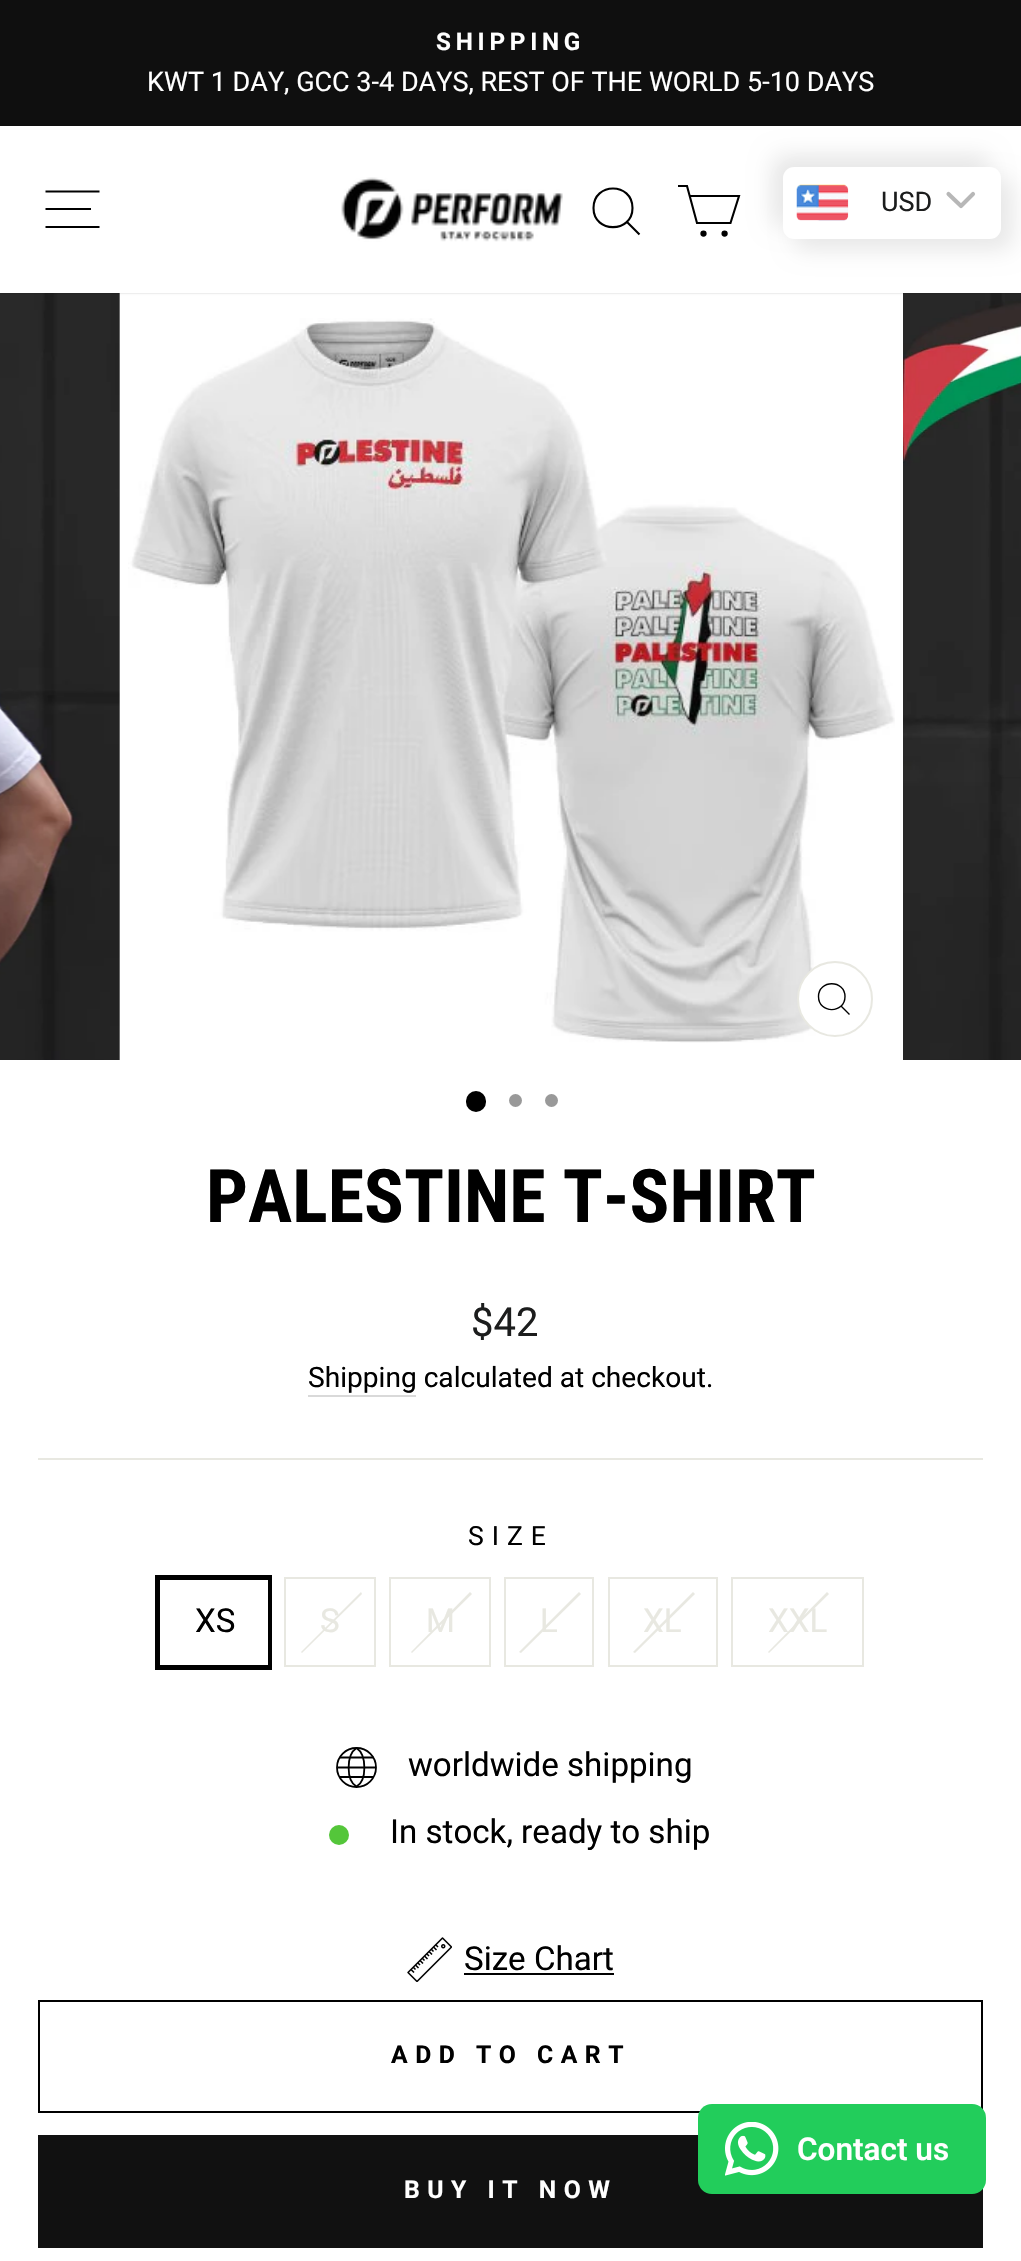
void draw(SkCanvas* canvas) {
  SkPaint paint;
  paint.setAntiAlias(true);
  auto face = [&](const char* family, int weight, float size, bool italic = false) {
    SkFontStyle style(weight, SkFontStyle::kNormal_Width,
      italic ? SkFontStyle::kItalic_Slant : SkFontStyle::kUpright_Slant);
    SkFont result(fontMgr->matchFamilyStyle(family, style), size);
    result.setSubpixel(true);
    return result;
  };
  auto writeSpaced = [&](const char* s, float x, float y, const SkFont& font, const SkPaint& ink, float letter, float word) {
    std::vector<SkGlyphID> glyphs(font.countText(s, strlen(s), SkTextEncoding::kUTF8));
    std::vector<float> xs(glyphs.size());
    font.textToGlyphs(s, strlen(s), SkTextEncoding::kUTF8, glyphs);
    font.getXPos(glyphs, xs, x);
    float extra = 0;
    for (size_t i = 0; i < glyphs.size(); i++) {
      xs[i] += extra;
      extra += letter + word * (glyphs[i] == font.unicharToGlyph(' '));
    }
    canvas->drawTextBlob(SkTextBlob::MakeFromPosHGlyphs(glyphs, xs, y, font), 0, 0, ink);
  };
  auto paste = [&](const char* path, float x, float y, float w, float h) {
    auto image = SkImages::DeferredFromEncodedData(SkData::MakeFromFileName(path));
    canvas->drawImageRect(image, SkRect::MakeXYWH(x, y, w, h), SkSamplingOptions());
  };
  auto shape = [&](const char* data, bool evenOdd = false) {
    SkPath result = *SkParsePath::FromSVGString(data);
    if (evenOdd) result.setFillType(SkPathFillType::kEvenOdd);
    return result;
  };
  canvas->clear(0xffffffff);
  paint.setColor(0xff0f0f0f);
  canvas->drawRect(SkRect::MakeXYWH(0, 0, 1021, 126), paint);
  paste("img/3.png", 0, 293, 120, 767);
  paste("img/5.png", 903, 293, 118, 767);
  paint.setColor(0x33000000);
  paint.setMaskFilter(SkMaskFilter::MakeBlur(kNormal_SkBlurStyle, 1));
  canvas->drawRect(SkRect::MakeXYWH(0, 126, 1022, 167), paint);
  paint.setMaskFilter(nullptr);
  paint.setColor(0xffffffff);
  canvas->drawRect(SkRect::MakeXYWH(0, 126, 1021, 167), paint);
  paint.setStroke(true);
  paint.setStrokeWidth(2.1f);
  paint.setColor(0xff000000);
  canvas->drawPath(shape("M45.5 191.5H99.5M45.5 209H91M45.5 227H99.5"), paint);
  paste("img/1.png", 341, 177, 222, 65);
  canvas->drawPath(shape("M632.5 208C632.5 233.5 593.5 233.5 593.5 208C593.5 182 632.5 182 632.5 208ZM639.5 234.5L627 222"), paint);
  canvas->drawPath(shape("M690 196H739L730.5 223H697L687 186H678"), paint);
  paint.setStroke(false);
  canvas->drawCircle(703.5f, 233.6f, 2.1f, paint);
  paint.setStroke(true);
  canvas->drawCircle(703.5f, 233.6f, 2.1f, paint);
  paint.setStroke(false);
  canvas->drawCircle(724.6f, 233.6f, 2.1f, paint);
  paint.setStroke(true);
  canvas->drawCircle(724.6f, 233.6f, 2.1f, paint);
  paint.setStroke(false);
  paint.setColor(0xffe8e8e8);
  paint.setMaskFilter(SkMaskFilter::MakeBlur(kNormal_SkBlurStyle, 11));
  canvas->drawRoundRect(SkRect::MakeXYWH(772, 155, 218, 72), 11, 11, paint);
  paint.setMaskFilter(nullptr);
  paint.setMaskFilter(SkMaskFilter::MakeBlur(kNormal_SkBlurStyle, 11));
  canvas->drawRoundRect(SkRect::MakeXYWH(794, 178, 219, 72), 11, 11, paint);
  paint.setMaskFilter(nullptr);
  paint.setColor(0xffffffff);
  canvas->drawRoundRect(SkRect::MakeXYWH(783, 167, 218, 72), 11, 11, paint);
  paste("img/2.png", 796, 184, 53, 37);
  paint.setStroke(true);
  paint.setStrokeWidth(4.1f);
  paint.setStrokeCap(SkPaint::kRound_Cap);
  paint.setStrokeJoin(SkPaint::kRound_Join);
  paint.setColor(0xffb7b7b7);
  canvas->drawPath(shape("M948.5 194L961 206L973 194"), paint);
  paste("img/4.png", 128, 318, 767, 725);
  paint.setStroke(false);
  paint.setColor(0xffffffff);
  canvas->drawCircle(835, 999, 37, paint);
  paint.setStroke(true);
  paint.setStrokeWidth(2);
  paint.setStrokeCap(SkPaint::kButt_Cap);
  paint.setStrokeJoin(SkPaint::kMiter_Join);
  paint.setColor(0xffe8e8e1);
  canvas->drawCircle(835, 999, 37, paint);
  paint.setStrokeWidth(1.4f);
  paint.setColor(0xff000000);
  canvas->drawPath(shape("M845 996.5C845 1014 818.5 1014 818.5 996.5C818.5 979.5 845 979.5 845 996.5ZM849.5 1014.5L841 1006"), paint);
  paint.setStroke(false);
  canvas->drawRoundRect(SkRect::MakeXYWH(466, 1091, 20, 21), 10, 10, paint);
  paint.setColor(0xff999999);
  canvas->drawCircle(515.5f, 1100.5f, 6.5f, paint);
  canvas->drawCircle(551.5f, 1100.5f, 6.5f, paint);
  paint.setColor(0xffd9d9d9);
  canvas->drawRect(SkRect::MakeXYWH(308, 1395, 108, 2), paint);
  paint.setColor(0xffe8e8e1);
  canvas->drawRect(SkRect::MakeXYWH(38, 1458, 945, 2), paint);
  paint.setStroke(true);
  paint.setStrokeWidth(5);
  paint.setColor(0xff000000);
  canvas->drawRect(SkRect::MakeXYWH(157.5f, 1577.5f, 112, 90), paint);
  paint.setStroke(false);
  paint.setColor(0xffffffff);
  canvas->drawRect(SkRect::MakeXYWH(267, 1580, 1, 85), paint);
  paint.setStroke(true);
  paint.setStrokeWidth(2);
  paint.setColor(0xffe8e8e1);
  canvas->drawRect(SkRect::MakeXYWH(285, 1578, 90, 88), paint);
  paint.setStroke(false);
  canvas->drawPath(shape("M361 1592L362 1594L302 1653L301 1652Z"), paint);
  paint.setStroke(true);
  canvas->drawRect(SkRect::MakeXYWH(390, 1578, 100, 88), paint);
  paint.setStroke(false);
  canvas->drawPath(shape("M470 1592L472 1594L412 1653L411 1652Z"), paint);
  paint.setStroke(true);
  canvas->drawRect(SkRect::MakeXYWH(505, 1578, 88, 88), paint);
  paint.setStroke(false);
  canvas->drawPath(shape("M579 1592L581 1594L521 1653L519 1652Z"), paint);
  paint.setStroke(true);
  canvas->drawRect(SkRect::MakeXYWH(609, 1578, 108, 88), paint);
  paint.setStroke(false);
  canvas->drawPath(shape("M693 1592L695 1594L635 1653L633 1652Z"), paint);
  paint.setStroke(true);
  canvas->drawRect(SkRect::MakeXYWH(732, 1578, 131, 88), paint);
  paint.setStroke(false);
  canvas->drawPath(shape("M827 1592L829 1594L769 1653L768 1652Z"), paint);
  paint.setStroke(true);
  paint.setStrokeWidth(1.8f);
  paint.setColor(0xff000000);
  canvas->drawCircle(356.5f, 1767.5f, 19.5f, paint);
  canvas->drawPath(shape("M340 1757.5H373.5M337.5 1767.5H376M340 1777H373.5M356.5 1748C346 1755 346 1780.5 356.5 1786.5M356.5 1748C367 1755 367 1780.5 356.5 1786.5"), paint);
  paint.setStroke(false);
  paint.setColor(0xff54c63a);
  canvas->drawCircle(339, 1835, 10, paint);
  paste("img/6.png", 407, 1937, 45, 45);
  paint.setColor(0xff000000);
  canvas->drawRect(SkRect::MakeXYWH(464, 1973, 150, 2), paint);
  paint.setStroke(true);
  paint.setStrokeWidth(2);
  canvas->drawRect(SkRect::MakeXYWH(39, 2001, 943, 111), paint);
  paint.setStroke(false);
  paint.setColor(0xff111111);
  canvas->drawRect(SkRect::MakeXYWH(38, 2135, 945, 113), paint);
  paint.setColor(0xff22cd5b);
  canvas->drawRoundRect(SkRect::MakeXYWH(698, 2104, 288, 90), 14, 14, paint);
  paste("img/7.png", 725, 2122, 54, 54);
  auto f0 = face("Roboto", 700, 24.25f);
  paint.setColor(0xffffffff);
  writeSpaced("SHIPPING", 436, 50, f0, paint, 4.75f, 0);
  auto f1 = face("Roboto", 400, 27);
  canvas->drawString("KWT 1 DAY, GCC 3-4 DAYS, REST OF THE WORLD 5-10 DAYS", 147, 91, f1, paint);
  paint.setColor(0xff1c1d1d);
  canvas->drawString("USD", 881, 211, f1, paint);
  auto f2 = face("Roboto Condensed", 700, 74);
  paint.setColor(0xff000000);
  canvas->drawString("PALESTINE T-SHIRT", 206, 1222, f2, paint);
  auto f3 = face("Roboto", 400, 40);
  paint.setColor(0xff1c1d1d);
  canvas->drawString("$42", 471, 1336, f3, paint);
  auto f4 = face("Roboto", 400, 28.1f);
  paint.setColor(0xff000000);
  canvas->drawString("Shipping calculated at checkout.", 308, 1387, f4, paint);
  auto f5 = face("Roboto", 400, 26.5f);
  writeSpaced("SIZE", 468, 1545, f5, paint, 8, 0);
  auto f6 = face("Roboto", 400, 33.1f);
  canvas->drawString("XS", 195, 1632, f6, paint);
  paint.setColor(0xffe8e8e1);
  {
    const struct { const char* s; float x, y; } items[] = {
      {"S", 320, 1632},
      {"M", 426, 1632},
      {"L", 540, 1632},
      {"XL", 643, 1632},
      {"XXL", 768, 1632},
    };
    for (auto [s, x, y] : items) {
      canvas->drawString(s, x, y, f6, paint);
    }
  }
  paint.setColor(0xff000000);
  {
    const struct { const char* s; float x, y; } items[] = {
      {"worldwide shipping", 408, 1776},
      {"In stock, ready to ship", 390, 1843},
      {"Size Chart", 464, 1970},
    };
    for (auto [s, x, y] : items) {
      canvas->drawString(s, x, y, f6, paint);
    }
  }
  auto f7 = face("Roboto", 700, 24.75f);
  writeSpaced("ADD TO CART", 391, 2063, f7, paint, 7.5f, 0);
  paint.setColor(0xffffffff);
  writeSpaced("BUY IT NOW", 404, 2198, f7, paint, 7.5f, 0);
  auto f8 = face("Roboto", 600, 31.5f);
  canvas->drawString("Contact us", 797, 2160, f8, paint);
}
